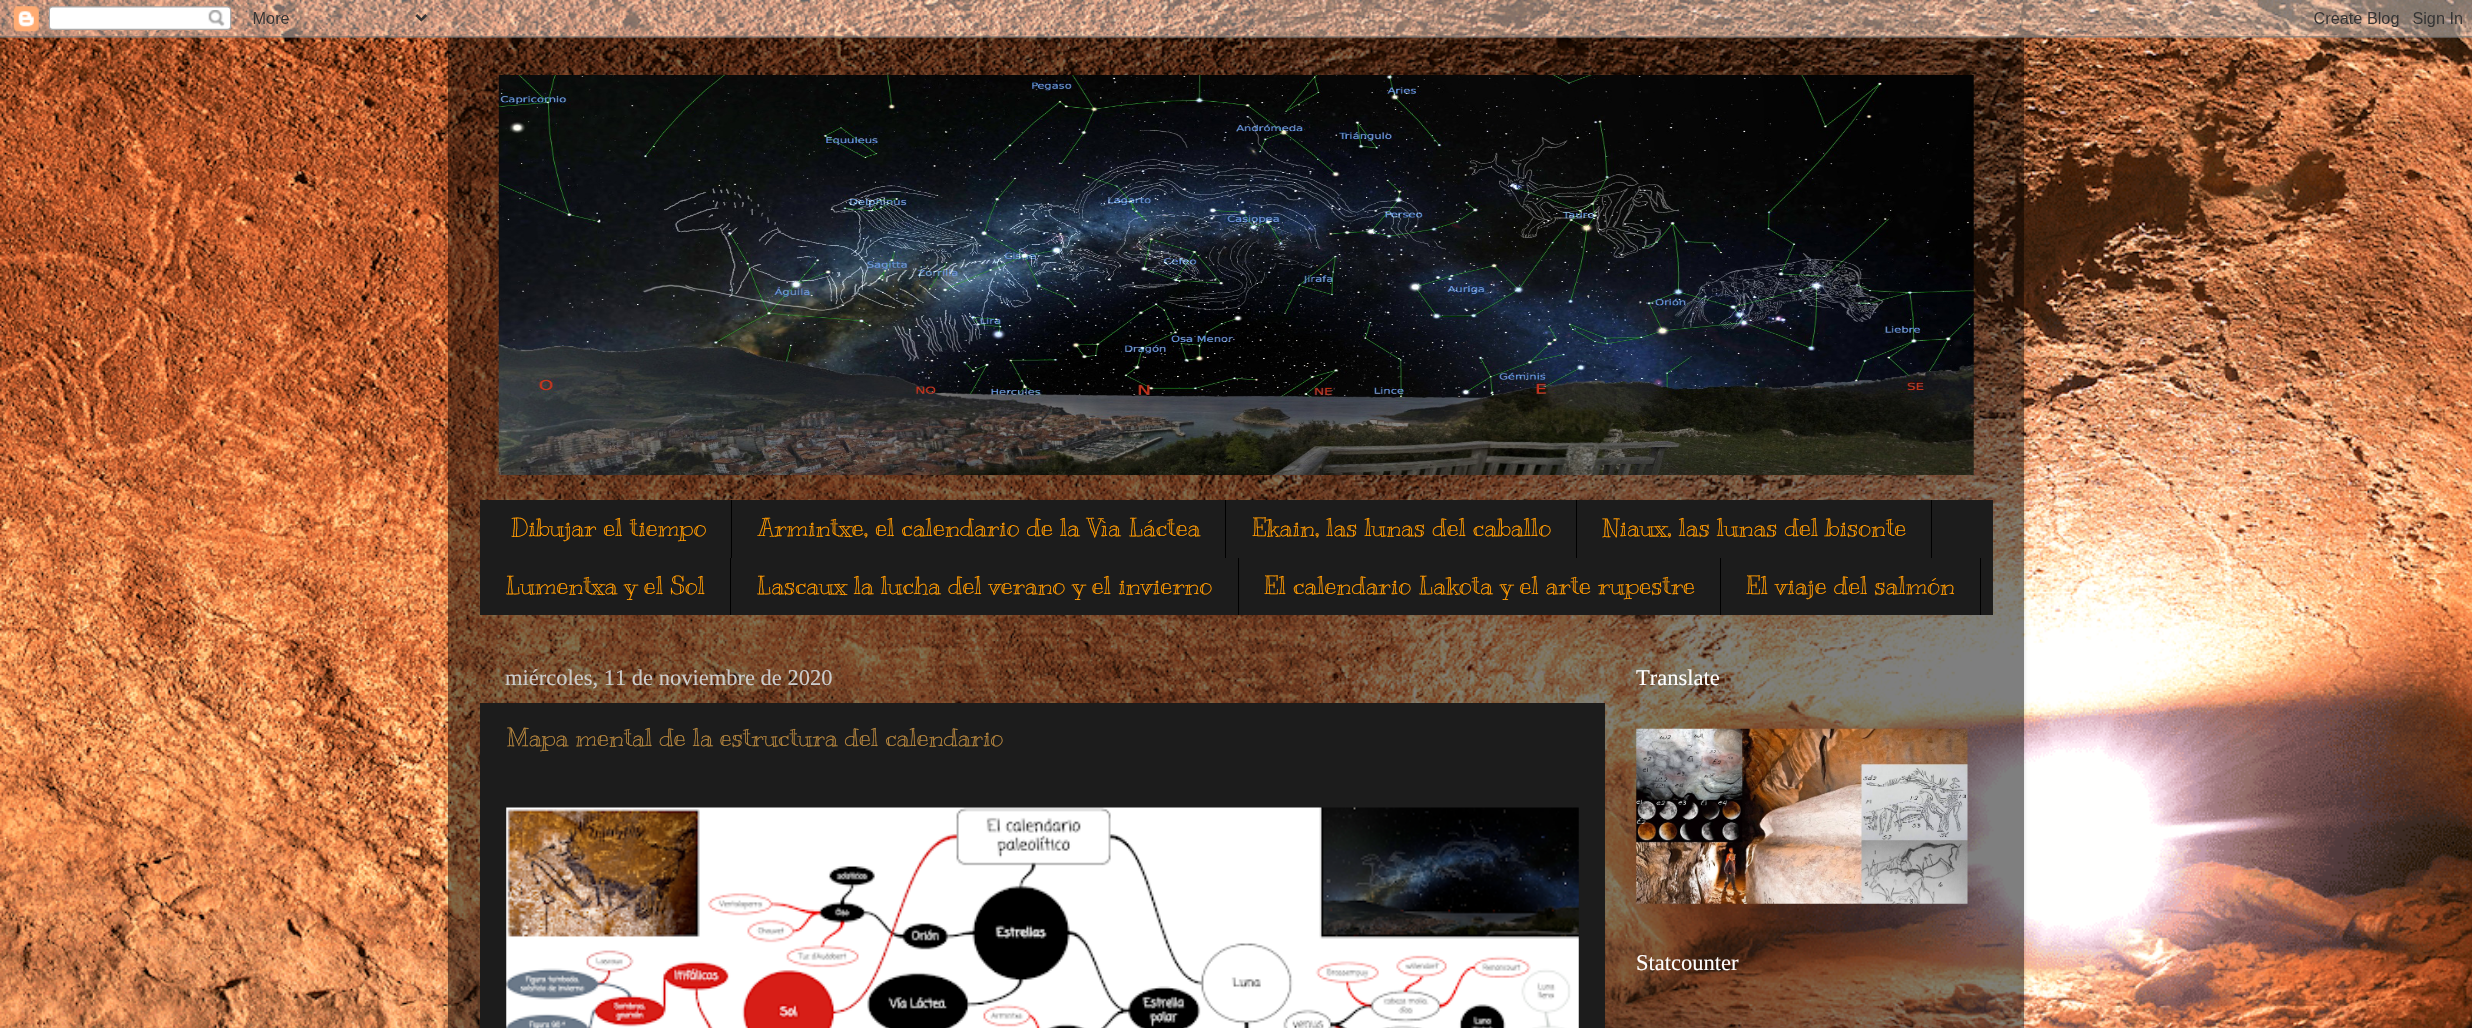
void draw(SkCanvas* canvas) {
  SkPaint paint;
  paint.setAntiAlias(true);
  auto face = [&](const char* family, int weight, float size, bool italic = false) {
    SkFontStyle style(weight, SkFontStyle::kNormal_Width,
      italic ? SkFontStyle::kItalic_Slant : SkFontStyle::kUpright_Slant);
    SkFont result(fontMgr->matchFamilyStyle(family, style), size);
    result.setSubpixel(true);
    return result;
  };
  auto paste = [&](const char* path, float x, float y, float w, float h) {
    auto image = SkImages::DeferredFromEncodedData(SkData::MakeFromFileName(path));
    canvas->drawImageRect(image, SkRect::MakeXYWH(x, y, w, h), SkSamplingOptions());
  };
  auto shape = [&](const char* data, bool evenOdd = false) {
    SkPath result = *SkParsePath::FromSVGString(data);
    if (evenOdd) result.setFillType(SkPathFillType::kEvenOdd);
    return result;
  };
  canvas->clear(0xffffffff);
  paste("img/1.png", 0, 0, 2472, 1028);
  canvas->save();
  canvas->clipPath(shape("M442 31H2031V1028H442ZM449 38H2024V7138H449Z", true), true);
  paint.setColor(0x26000000);
  paint.setMaskFilter(SkMaskFilter::MakeBlur(kNormal_SkBlurStyle, 2));
  canvas->drawRect(SkRect::MakeXYWH(449, 38, 1575, 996), paint);
  paint.setMaskFilter(nullptr);
  canvas->restore();
  paint.setColor(0x80000000);
  canvas->drawRect(SkRect::MakeXYWH(448, 37, 1576, 991), paint);
  paste("img/2.png", 0, 0, 2472, 38);
  paste("img/3.png", 498, 75, 1476, 400);
  {
    const struct { float x, y, w, h; SkColor color; } items[] = {
      {480, 500, 1513, 115, 0xff1c1c1c},
      {731, 500, 1, 58, 0xff000000},
      {1225, 500, 1, 58, 0xff000000},
      {1576, 500, 1, 58, 0xff000000},
      {1931, 500, 1, 58, 0xff000000},
      {730, 558, 1, 57, 0xff000000},
      {1238, 558, 1, 57, 0xff000000},
      {1720, 558, 1, 57, 0xff000000},
      {1980, 558, 1, 57, 0xff000000},
      {480, 703, 1125, 325, 0xff1c1c1c},
    };
    for (auto [x, y, w, h, color] : items) {
      paint.setColor(color);
      canvas->drawRect(SkRect::MakeXYWH(x, y, w, h), paint);
    }
  }
  paste("img/4.png", 506, 807, 1073, 221);
  paste("img/5.png", 1636, 728, 332, 176);
  auto f0 = face("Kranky", 400, 25);
  paint.setColor(0xffff9900);
  {
    const struct { const char* s; float x, y; } items[] = {
      {"Dibujar el tiempo", 511, 536},
      {"Armintxe, el calendario de la Vìa Láctea", 758, 536},
      {"Ekain, las lunas del caballo", 1252, 536},
      {"Niaux, las lunas del bisonte", 1602, 536},
      {"Lumentxa y el Sol", 505, 594},
      {"Lascaux la lucha del verano y el invierno", 756, 594},
      {"El calendario Lakota y el arte rupestre", 1264, 594},
      {"El viaje del salmón", 1746, 594},
    };
    for (auto [s, x, y] : items) {
      canvas->drawString(s, x, y, f0, paint);
    }
  }
  auto f1 = face("Liberation Serif", 400, 22.5f);
  paint.setColor(0xffcccccc);
  canvas->drawString("miércoles, 11 de noviembre de 2020", 505, 685, f1, paint);
  paint.setColor(0xffb7863d);
  canvas->drawString("Mapa mental de la estructura del calendario", 506, 746, f0, paint);
  paint.setColor(0xffffffff);
  canvas->drawString("Translate", 1636, 685, f1, paint);
  canvas->drawString("Statcounter", 1636, 970, f1, paint);
}
